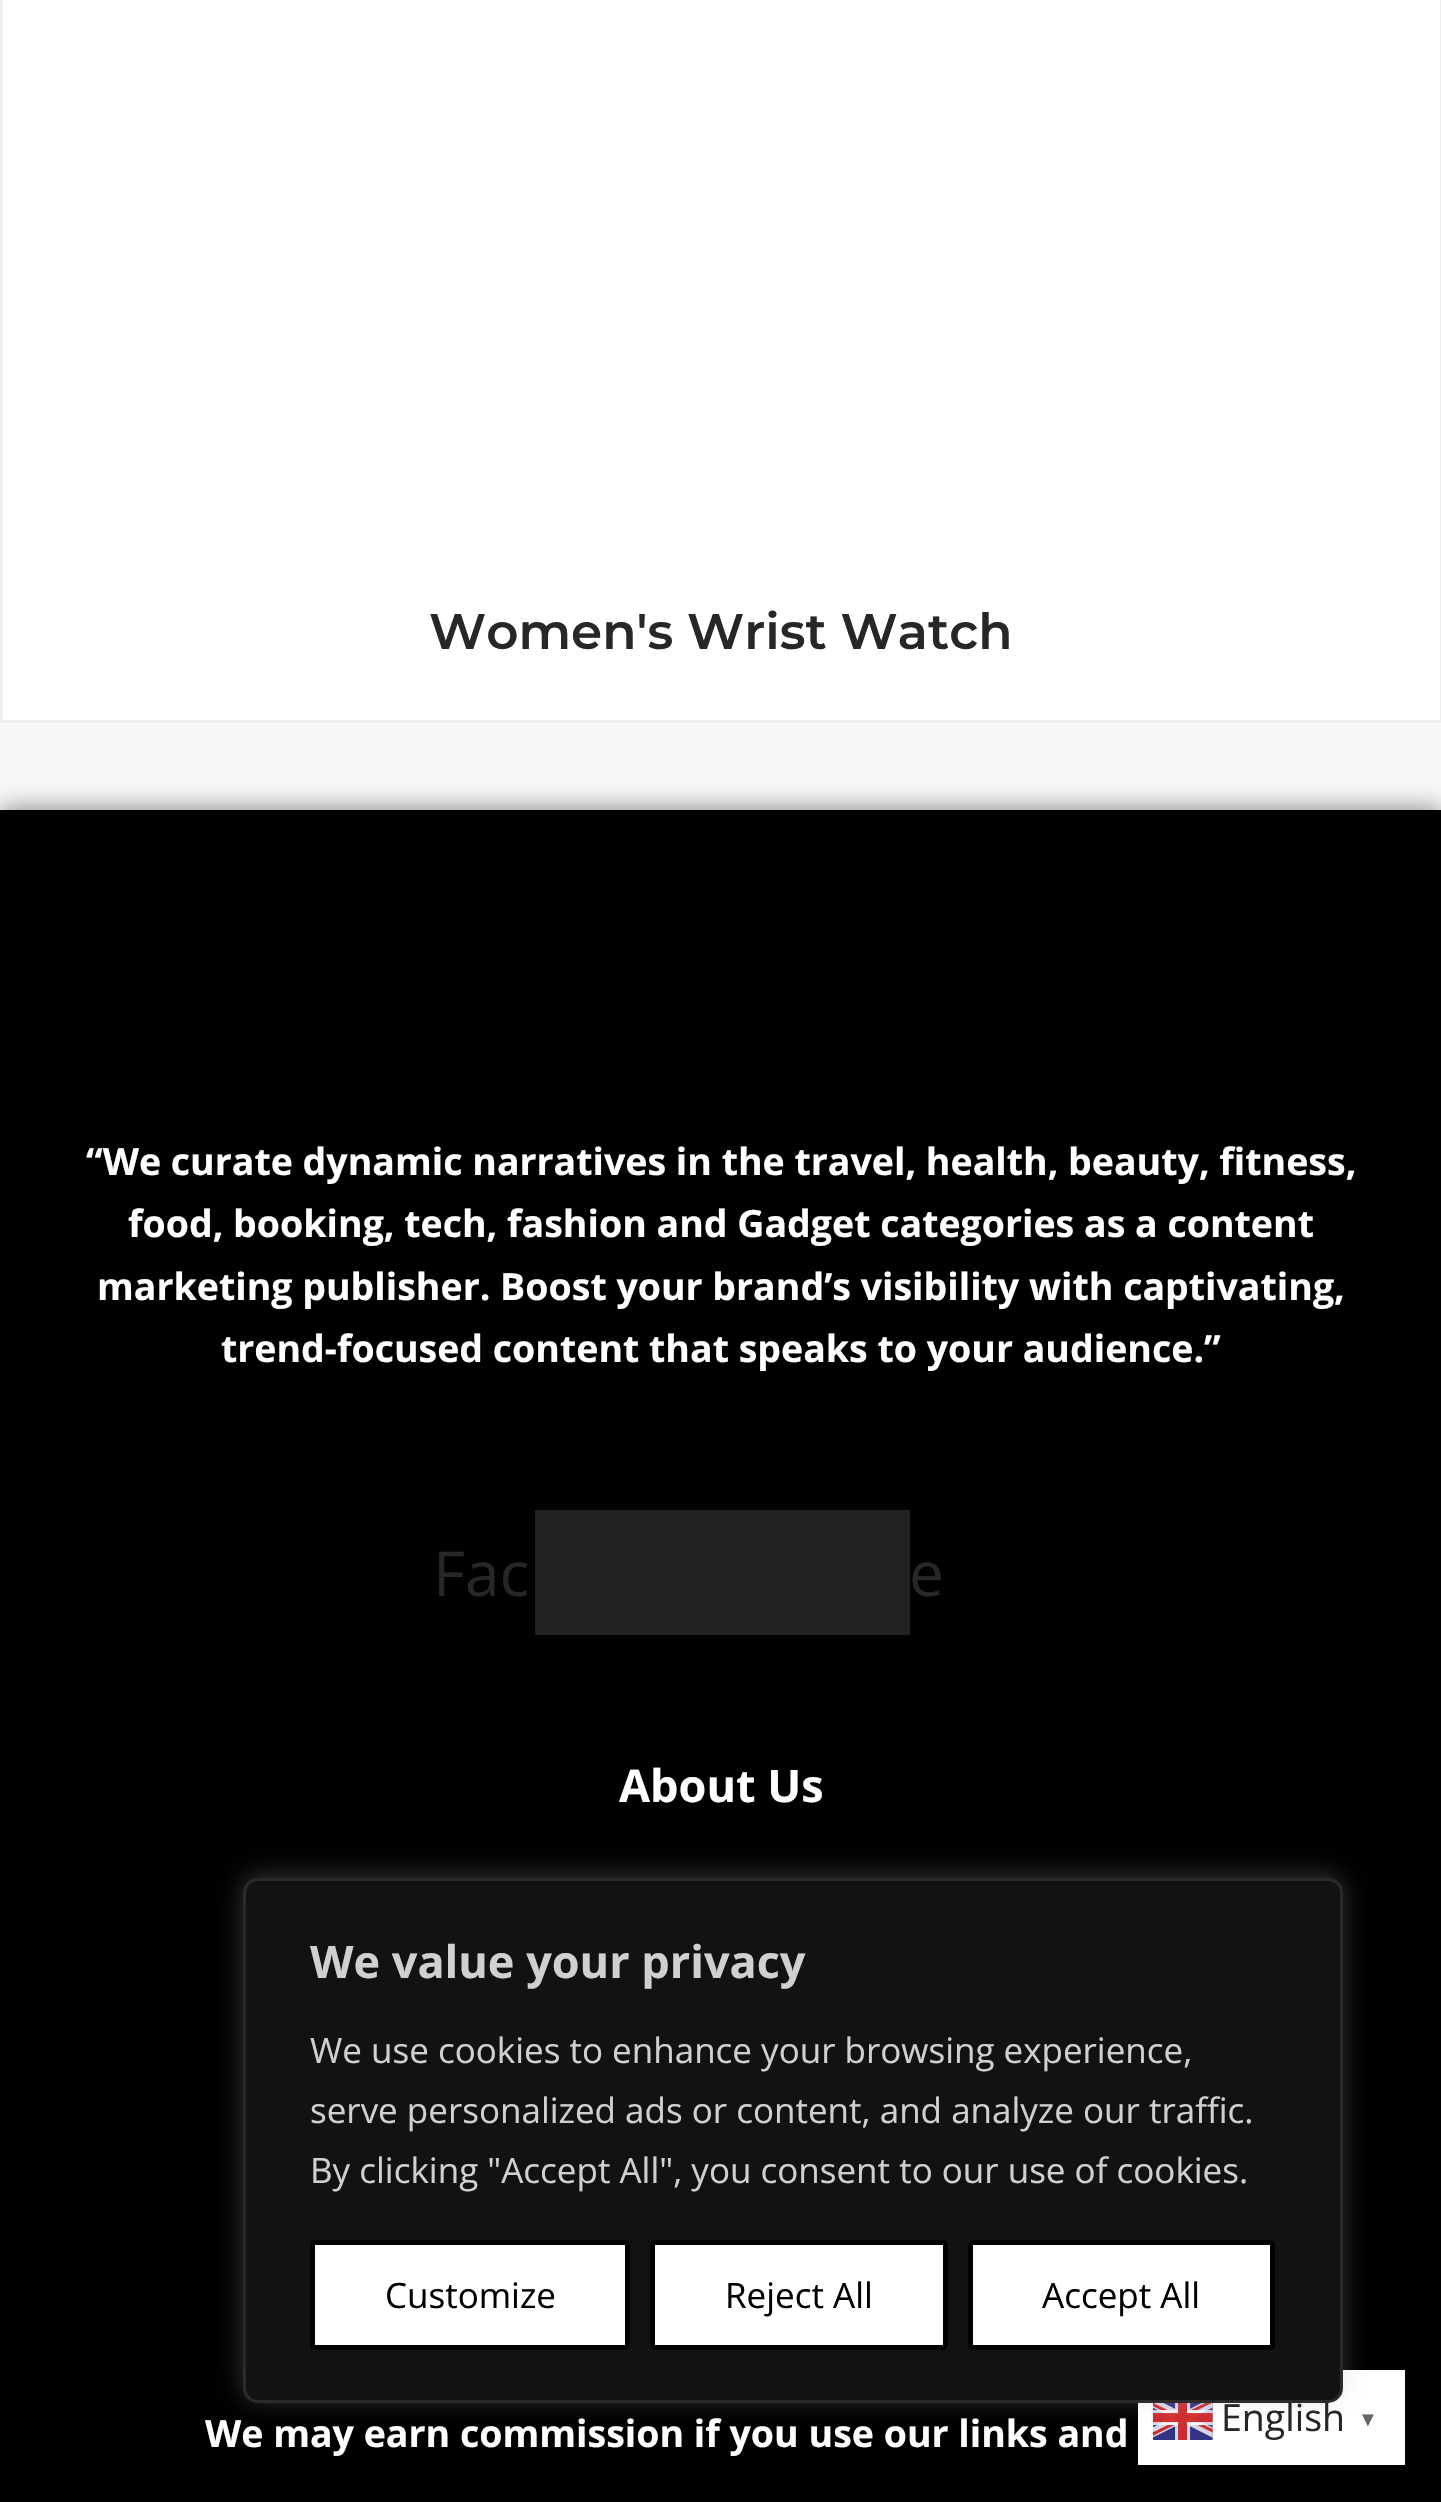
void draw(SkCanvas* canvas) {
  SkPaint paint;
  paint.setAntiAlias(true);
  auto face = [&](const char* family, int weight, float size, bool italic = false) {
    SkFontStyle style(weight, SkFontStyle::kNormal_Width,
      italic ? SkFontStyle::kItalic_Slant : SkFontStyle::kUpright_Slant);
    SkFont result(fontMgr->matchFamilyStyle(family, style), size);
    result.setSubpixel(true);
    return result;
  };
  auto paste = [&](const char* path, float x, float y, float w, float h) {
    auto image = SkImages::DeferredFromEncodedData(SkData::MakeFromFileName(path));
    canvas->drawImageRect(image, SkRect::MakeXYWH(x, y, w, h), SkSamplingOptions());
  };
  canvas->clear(0xfff8f8f8);
  paint.setColor(0xffffffff);
  canvas->drawRect(SkRect::MakeXYWH(1.5f, -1.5f, 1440, 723), paint);
  paint.setStroke(true);
  paint.setStrokeWidth(3);
  paint.setColor(0xffeeeeee);
  canvas->drawRect(SkRect::MakeXYWH(1.5f, -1.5f, 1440, 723), paint);
  paint.setStroke(false);
  paint.setColor(0x80000000);
  paint.setMaskFilter(SkMaskFilter::MakeBlur(kNormal_SkBlurStyle, 12.5f));
  canvas->drawRect(SkRect::MakeXYWH(0, 810, 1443, 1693), paint);
  paint.setMaskFilter(nullptr);
  {
    const struct { float x, y, w, h; SkColor color; } items[] = {
      {0, 810, 1441, 1692, 0xff000000},
      {535, 1510, 375, 125, 0xff222222},
      {1138, 2370, 267, 95, 0xffffffff},
    };
    for (auto [x, y, w, h, color] : items) {
      paint.setColor(color);
      canvas->drawRect(SkRect::MakeXYWH(x, y, w, h), paint);
    }
  }
  paste("img/1.png", 1153, 2403, 60, 37);
  paint.setColor(0x4dacabab);
  paint.setMaskFilter(SkMaskFilter::MakeBlur(kNormal_SkBlurStyle, 12.5f));
  canvas->drawRoundRect(SkRect::MakeXYWH(243, 1875, 1100, 525), 15, 15, paint);
  paint.setMaskFilter(nullptr);
  auto f0 = face("Montserrat", 100, 50);
  paint.setColor(0xff272727);
  canvas->drawString("Women's Wrist Watch", 429, 649, f0, paint);
  auto f1 = face("Open Sans", 700, 37.5f);
  paint.setColor(0xffffffff);
  {
    const struct { const char* s; float x, y; } items[] = {
      {"“We curate dynamic narratives in the travel, health, beauty, fitness,", 86, 1175},
      {"food, booking, tech, fashion and Gadget categories as a content", 128, 1237},
      {"marketing publisher. Boost your brand’s visibility with captivating,", 97, 1300},
      {"trend-focused content that speaks to your audience.”", 221, 1362},
    };
    for (auto [s, x, y] : items) {
      canvas->drawString(s, x, y, f1, paint);
    }
  }
  auto f2 = face("Open Sans", 400, 62);
  paint.setColor(0xff272727);
  canvas->drawString("Fac", 433, 1596, f2, paint);
  canvas->drawString("e", 909, 1596, f2, paint);
  auto f3 = face("Open Sans", 700, 45);
  paint.setColor(0xffffffff);
  canvas->drawString("About Us", 619, 1802, f3, paint);
  canvas->drawString("We may earn commission if you use our links and", 205, 2447, f1, paint);
  auto f4 = face("Open Sans", 400, 37.5f);
  paint.setColor(0xff272727);
  canvas->drawString("English", 1221, 2431, f4, paint);
  paint.setColor(0xff121212);
  canvas->drawRoundRect(SkRect::MakeXYWH(244.5f, 1879.5f, 1097, 522), 13.5f, 13.5f, paint);
  paint.setStroke(true);
  paint.setColor(0xff2a2a2a);
  canvas->drawRoundRect(SkRect::MakeXYWH(244.5f, 1879.5f, 1097, 522), 13.5f, 13.5f, paint);
  paint.setStroke(false);
  paint.setColor(0xffffffff);
  canvas->drawRoundRect(SkRect::MakeXYWH(970.5f, 2242.5f, 302, 105), 2.5f, 2.5f, paint);
  paint.setStroke(true);
  paint.setStrokeWidth(5);
  paint.setColor(0xff000000);
  canvas->drawRoundRect(SkRect::MakeXYWH(970.5f, 2242.5f, 302, 105), 2.5f, 2.5f, paint);
  auto f5 = face("Open Sans", 400, 35);
  paint.setStroke(false);
  canvas->drawString("Accept All", 1042, 2308, f5, paint);
  paint.setColor(0xffffffff);
  canvas->drawRoundRect(SkRect::MakeXYWH(652.5f, 2242.5f, 293, 105), 2.5f, 2.5f, paint);
  paint.setStroke(true);
  paint.setColor(0xff000000);
  canvas->drawRoundRect(SkRect::MakeXYWH(652.5f, 2242.5f, 293, 105), 2.5f, 2.5f, paint);
  paint.setStroke(false);
  canvas->drawString("Reject All", 725, 2308, f5, paint);
  paint.setColor(0xffffffff);
  canvas->drawRoundRect(SkRect::MakeXYWH(312.5f, 2242.5f, 315, 105), 2.5f, 2.5f, paint);
  paint.setStroke(true);
  paint.setColor(0xff000000);
  canvas->drawRoundRect(SkRect::MakeXYWH(312.5f, 2242.5f, 315, 105), 2.5f, 2.5f, paint);
  paint.setStroke(false);
  canvas->drawString("Customize", 385, 2308, f5, paint);
  paint.setColor(0xffd0d0d0);
  {
    const struct { const char* s; float x, y; } items[] = {
      {"By clicking \"Accept All\", you consent to our use of cookies.", 310, 2183},
      {"serve personalized ads or content, and analyze our traffic.", 310, 2123},
      {"We use cookies to enhance your browsing experience,", 310, 2063},
    };
    for (auto [s, x, y] : items) {
      canvas->drawString(s, x, y, f5, paint);
    }
  }
  canvas->drawString("We value your privacy", 310, 1978, f3, paint);
  auto f6 = face("Liberation Sans", 700, 20);
  paint.setColor(0xff666666);
  canvas->drawString("▼", 1358, 2426, f6, paint);
}
